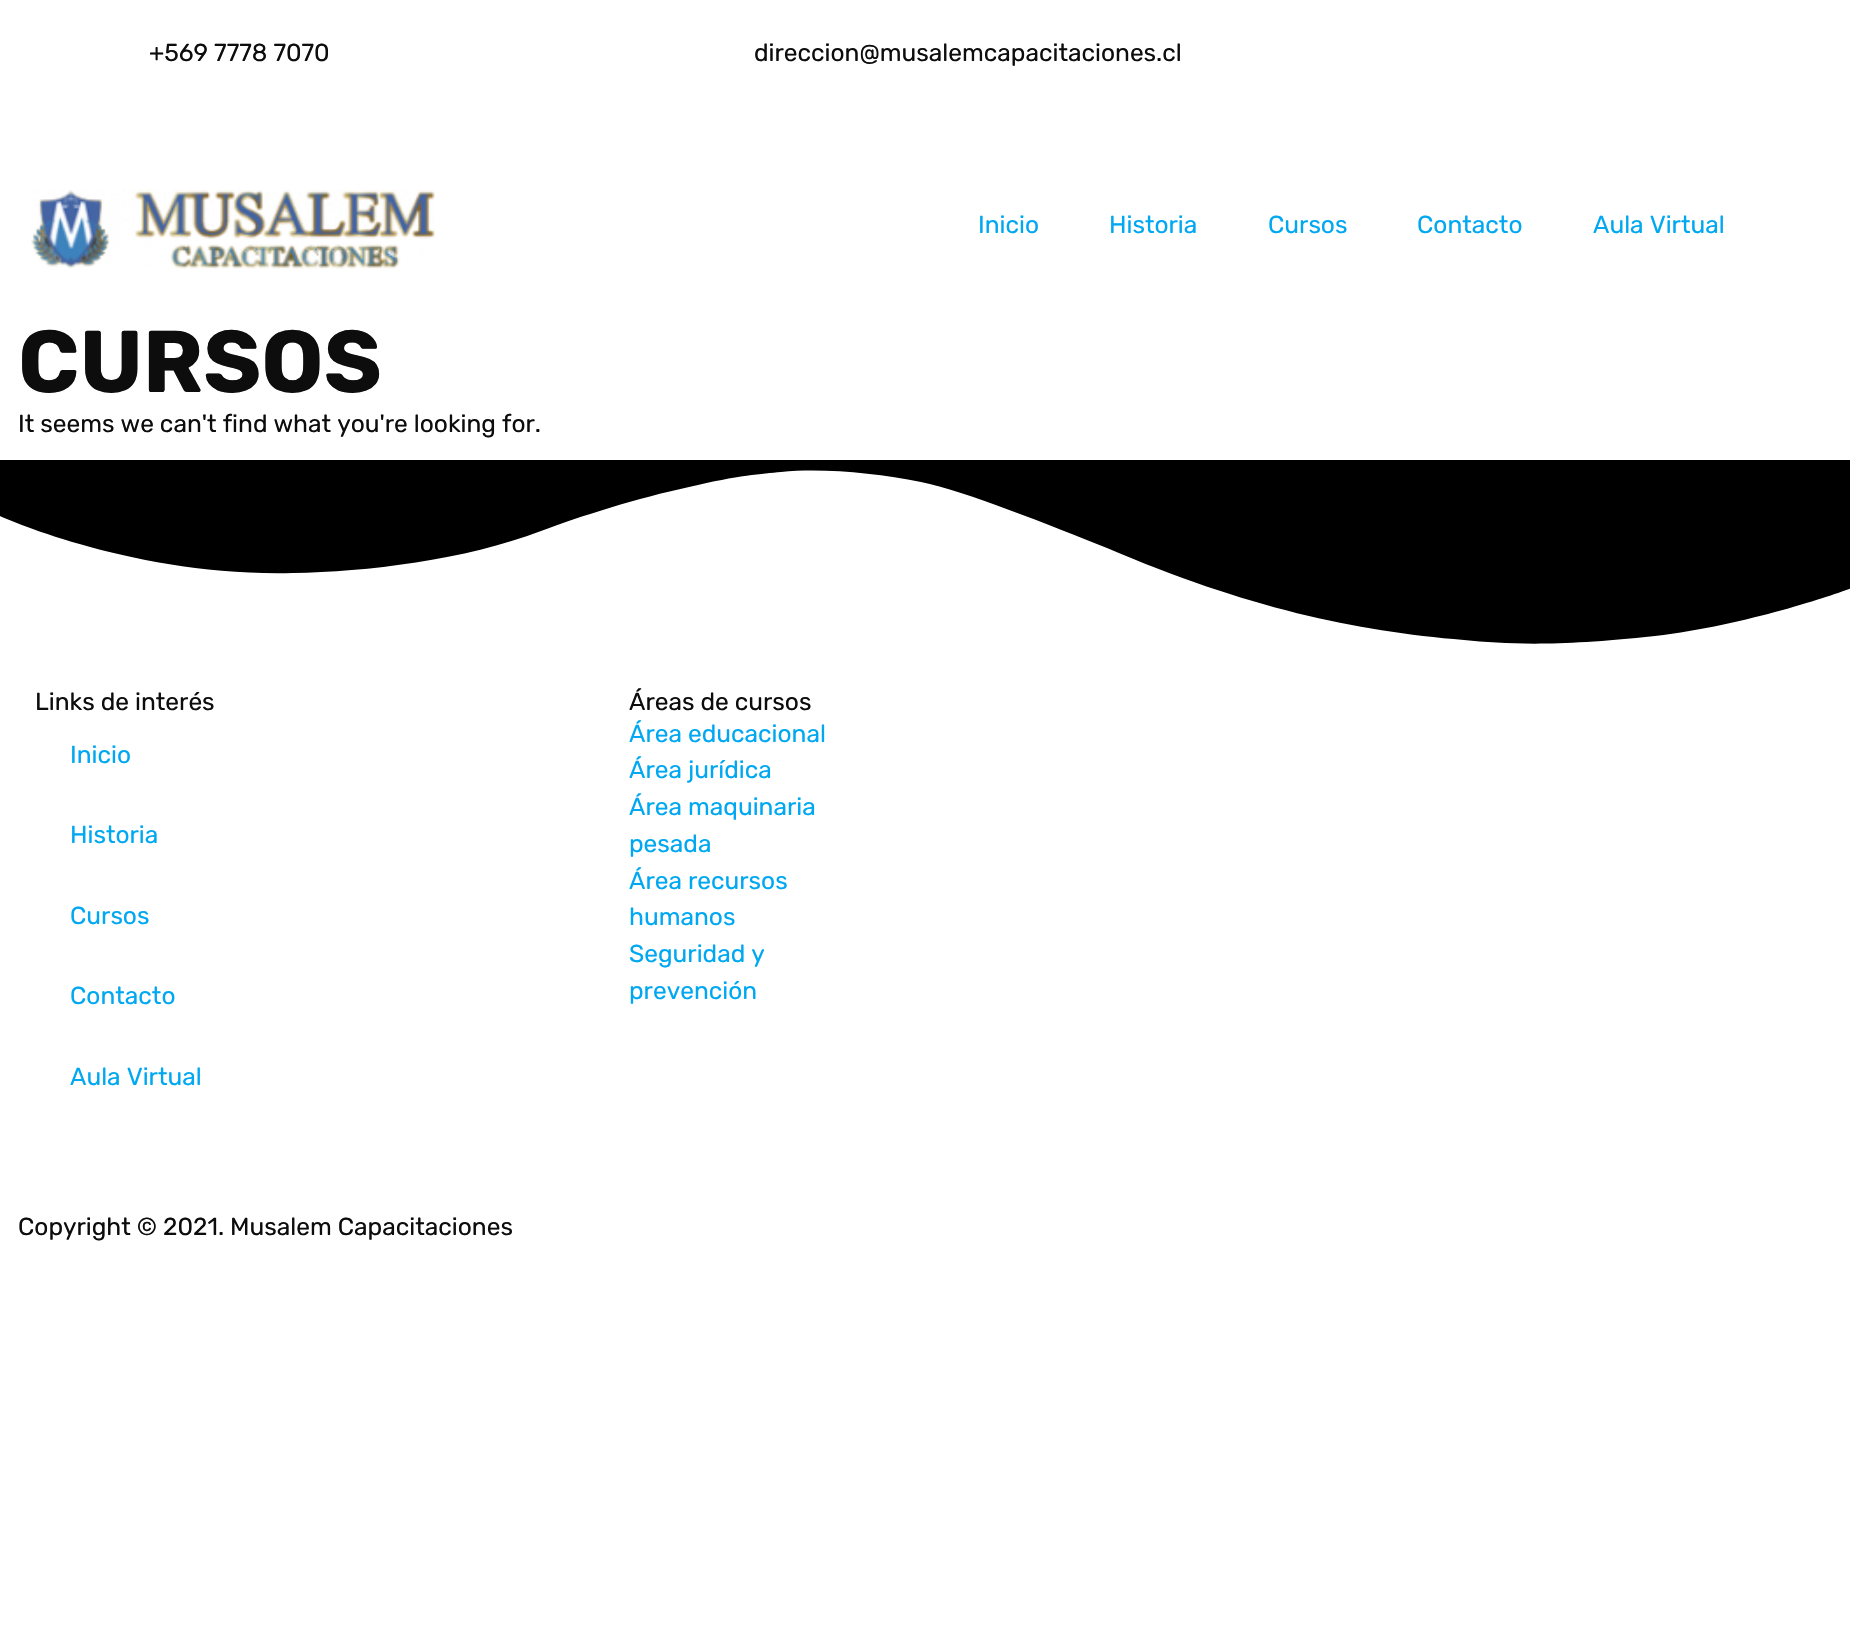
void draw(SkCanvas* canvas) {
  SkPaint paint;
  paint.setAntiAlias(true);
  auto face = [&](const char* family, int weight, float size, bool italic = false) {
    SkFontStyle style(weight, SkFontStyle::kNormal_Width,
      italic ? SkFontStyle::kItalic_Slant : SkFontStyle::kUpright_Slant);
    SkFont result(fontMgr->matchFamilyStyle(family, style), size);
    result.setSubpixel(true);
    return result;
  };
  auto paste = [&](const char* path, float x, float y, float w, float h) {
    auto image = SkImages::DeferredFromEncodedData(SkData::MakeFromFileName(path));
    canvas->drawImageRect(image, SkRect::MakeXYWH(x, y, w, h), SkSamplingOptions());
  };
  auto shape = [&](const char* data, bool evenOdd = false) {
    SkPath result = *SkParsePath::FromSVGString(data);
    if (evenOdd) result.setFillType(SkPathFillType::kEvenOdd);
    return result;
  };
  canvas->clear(0xffffffff);
  paste("img/1.png", 31, 189, 404, 80);
  paint.setColor(0xff000000);
  canvas->drawPath(shape("M781 472C823 468 876 473 921 482C965 491 1052 526 1107 548C1247 608 1355 631 1464 640C1507 644 1554 647 1655 636C1756 624 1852 588 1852 588V460H0V516C0 516 133 577 293 573C366 572 465 560 541 531C581 516 638 498 689 487C739 475 762 474 781 472Z"), paint);
  auto f0 = face("Rubik", 400, 24.5f);
  paint.setColor(0xff0d0d0d);
  canvas->drawString("+569 7778 7070", 149, 61, f0, paint);
  canvas->drawString("direccion@musalemcapacitaciones.cl", 754, 61, f0, paint);
  paint.setColor(0xff00a8f1);
  {
    const struct { const char* s; float x, y; } items[] = {
      {"Inicio", 978, 233},
      {"Historia", 1109, 233},
      {"Cursos", 1268, 233},
      {"Contacto", 1417, 233},
      {"Aula Virtual", 1593, 233},
    };
    for (auto [s, x, y] : items) {
      canvas->drawString(s, x, y, f0, paint);
    }
  }
  auto f1 = face("Rubik", 700, 87.5f);
  paint.setColor(0xff0d0d0d);
  canvas->drawString("CURSOS", 18, 392, f1, paint);
  canvas->drawString("It seems we can't find what you're looking for.", 18, 432, f0, paint);
  canvas->drawString("Links de interés", 35, 710, f0, paint);
  paint.setColor(0xff00a8f1);
  {
    const struct { const char* s; float x, y; } items[] = {
      {"Inicio", 70, 763},
      {"Historia", 70, 843},
      {"Cursos", 70, 924},
      {"Contacto", 70, 1004},
      {"Aula Virtual", 70, 1085},
    };
    for (auto [s, x, y] : items) {
      canvas->drawString(s, x, y, f0, paint);
    }
  }
  paint.setColor(0xff0d0d0d);
  canvas->drawString("Áreas de cursos", 629, 710, f0, paint);
  paint.setColor(0xff00a8f1);
  {
    const struct { const char* s; float x, y; } items[] = {
      {"Área educacional", 629, 742},
      {"Área jurídica", 629, 778},
      {"Área maquinaria", 629, 815},
      {"pesada", 629, 852},
      {"Área recursos", 629, 889},
      {"humanos", 629, 925},
      {"Seguridad y", 629, 962},
      {"prevención", 629, 999},
    };
    for (auto [s, x, y] : items) {
      canvas->drawString(s, x, y, f0, paint);
    }
  }
  paint.setColor(0xff0d0d0d);
  canvas->drawString("Copyright © 2021. Musalem Capacitaciones", 18, 1235, f0, paint);
}
